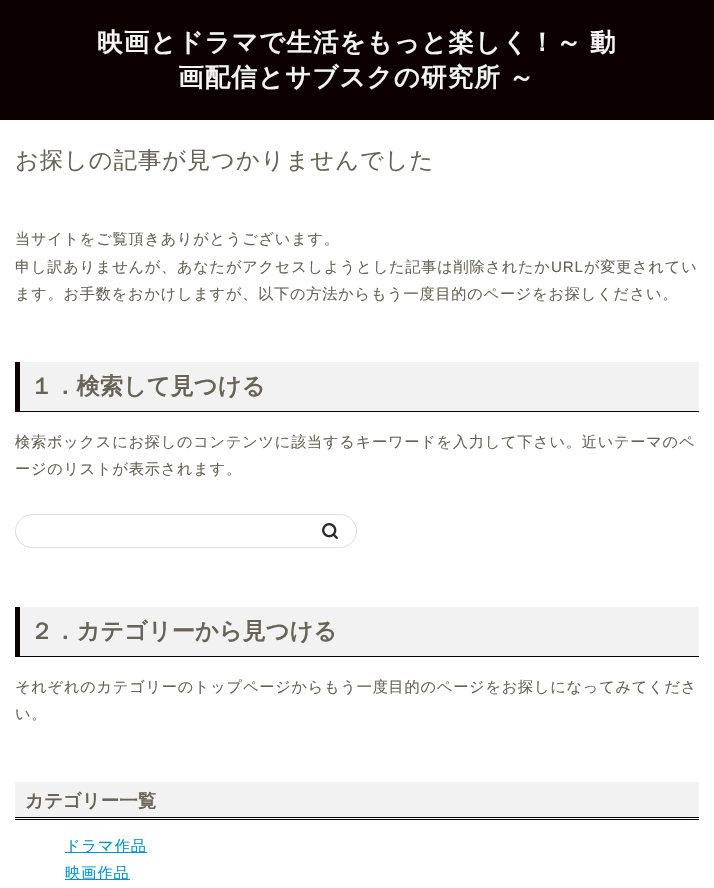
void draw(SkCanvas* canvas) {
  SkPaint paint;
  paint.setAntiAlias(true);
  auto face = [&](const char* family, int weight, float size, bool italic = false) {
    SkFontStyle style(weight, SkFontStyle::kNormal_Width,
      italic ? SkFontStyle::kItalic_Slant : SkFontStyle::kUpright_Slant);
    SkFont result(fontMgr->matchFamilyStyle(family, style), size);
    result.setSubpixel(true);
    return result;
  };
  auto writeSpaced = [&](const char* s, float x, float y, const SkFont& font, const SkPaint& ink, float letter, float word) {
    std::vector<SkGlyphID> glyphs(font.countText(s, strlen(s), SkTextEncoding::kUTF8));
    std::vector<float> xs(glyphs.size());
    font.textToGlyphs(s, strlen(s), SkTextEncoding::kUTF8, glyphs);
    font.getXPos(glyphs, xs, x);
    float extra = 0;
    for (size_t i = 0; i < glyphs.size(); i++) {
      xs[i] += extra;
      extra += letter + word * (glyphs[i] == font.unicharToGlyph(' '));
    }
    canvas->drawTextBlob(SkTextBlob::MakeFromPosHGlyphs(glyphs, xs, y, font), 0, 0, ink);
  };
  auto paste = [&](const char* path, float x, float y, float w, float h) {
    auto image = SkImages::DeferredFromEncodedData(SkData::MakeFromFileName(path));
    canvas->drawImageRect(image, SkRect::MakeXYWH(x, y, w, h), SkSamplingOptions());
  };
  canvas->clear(0xffffffff);
  {
    const struct { float x, y, w, h; SkColor color; } items[] = {
      {15, 782, 684, 35, 0xfff3f2f2},
      {20, 607, 679, 49, 0xfff3f2f2},
      {20, 362, 679, 49, 0xfff3f2f2},
      {0, 0, 714, 120, 0xff0c0000},
      {15, 411, 684, 1, 0xff0c0000},
      {15, 362, 5, 50, 0xff0c0000},
    };
    for (auto [x, y, w, h, color] : items) {
      paint.setColor(color);
      canvas->drawRect(SkRect::MakeXYWH(x, y, w, h), paint);
    }
  }
  paint.setStroke(true);
  paint.setStrokeWidth(1);
  paint.setColor(0xffdddddd);
  canvas->drawRoundRect(SkRect::MakeXYWH(15.5f, 514.5f, 341, 33), 16.5f, 16.5f, paint);
  paste("img/1.png", 322, 523, 16, 16);
  paint.setStroke(false);
  {
    const struct { float x, y, w, h; SkColor color; } items[] = {
      {15, 656, 684, 1, 0xff0c0000},
      {15, 607, 5, 50, 0xff0c0000},
      {15, 817, 684, 1, 0xff0c0000},
      {15, 819, 684, 1, 0xff0c0000},
      {65, 852, 82, 1, 0xff0094c8},
      {65, 879, 65, 1, 0xff0094c8},
    };
    for (auto [x, y, w, h, color] : items) {
      paint.setColor(color);
      canvas->drawRect(SkRect::MakeXYWH(x, y, w, h), paint);
    }
  }
  auto f0 = face("WenQuanYi Zen Hei", 700, 25.6f);
  paint.setColor(0xfff4f4f4);
  writeSpaced("映画とドラマで生活をもっと楽しく！～ 動", 97, 51, f0, paint, 1, -1);
  writeSpaced("画配信とサブスクの研究所 ～", 178, 86, f0, paint, 1, -1);
  auto f1 = face("WenQuanYi Zen Hei", 500, 23.25f);
  paint.setColor(0xff686357);
  writeSpaced("お探しの記事が見つかりませんでした", 15, 168, f1, paint, 1, 0);
  auto f2 = face("WenQuanYi Zen Hei", 500, 15.2f);
  writeSpaced("当サイトをご覧頂きありがとうございます。", 15, 244, f2, paint, 0.75f, 0);
  writeSpaced("申し訳ありませんが、あなたがアクセスしようとした記事は削除されたか", 15, 272, f2, paint, 0.75f, 0);
  auto f3 = face("Liberation Sans", 400, 15.2f);
  writeSpaced("URL", 551, 272, f3, paint, 0.75f, 0);
  writeSpaced("が変更されてい", 584, 272, f2, paint, 0.75f, 0);
  writeSpaced("ます。お手数をおかけしますが、以下の方法からもう一度目的のページをお探しください。", 15, 299, f2, paint, 0.75f, 0);
  auto f4 = face("WenQuanYi Zen Hei", 700, 23.25f);
  canvas->drawString("１．検索して見つける", 30, 394, f4, paint);
  writeSpaced("検索ボックスにお探しのコンテンツに該当するキーワードを入力して下さい。近いテーマのペ", 15, 447, f2, paint, 0.75f, 0);
  writeSpaced("ージのリストが表示されます。", 15, 474, f2, paint, 0.75f, 0);
  canvas->drawString("２．カテゴリーから見つける", 30, 639, f4, paint);
  writeSpaced("それぞれのカテゴリーのトップページからもう一度目的のページをお探しになってみてくださ", 15, 692, f2, paint, 0.75f, 0);
  writeSpaced("い。", 15, 719, f2, paint, 0.75f, 0);
  auto f5 = face("WenQuanYi Zen Hei", 700, 18.5f);
  canvas->drawString("カテゴリー一覧", 25, 807, f5, paint);
  paint.setColor(0xff0094c8);
  writeSpaced("ドラマ作品", 65, 851, f2, paint, 1, 0);
  writeSpaced("映画作品", 65, 878, f2, paint, 1, 0);
}
